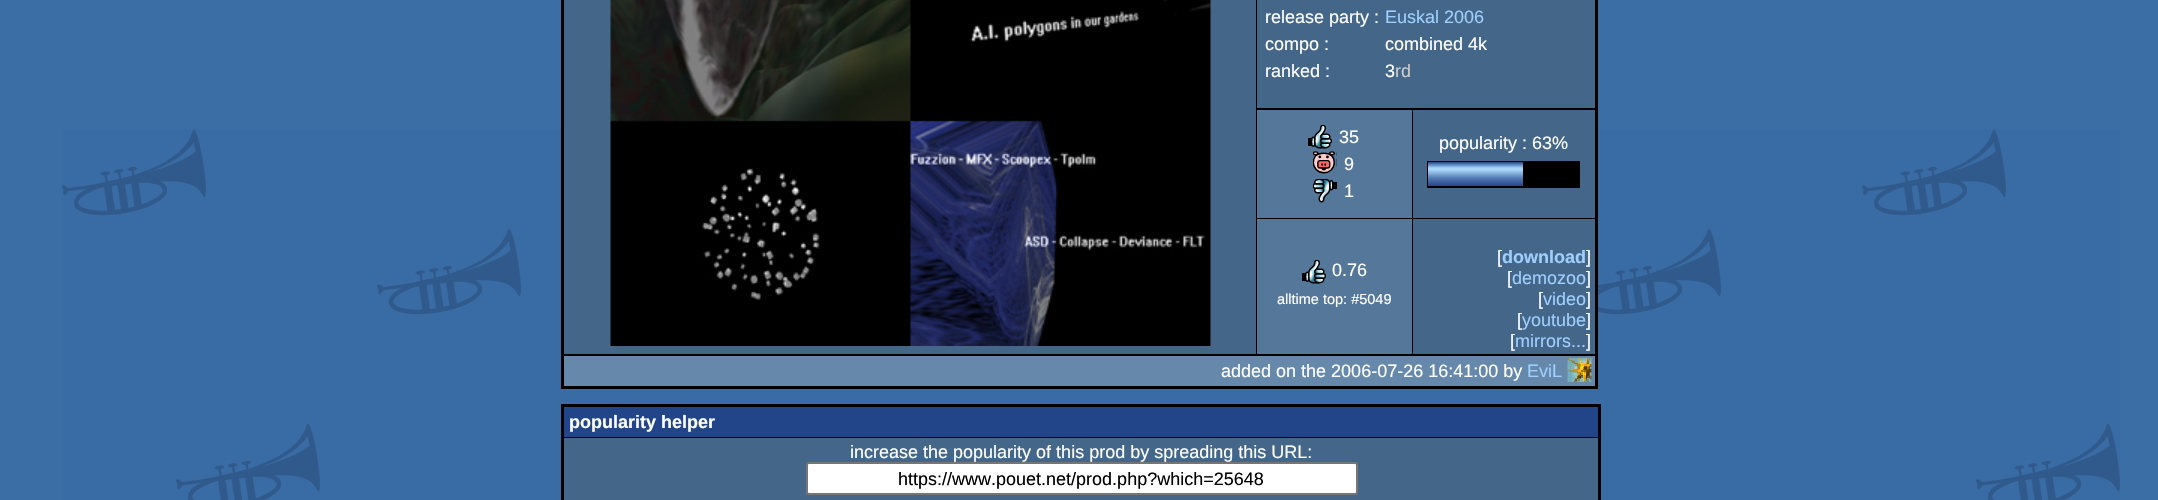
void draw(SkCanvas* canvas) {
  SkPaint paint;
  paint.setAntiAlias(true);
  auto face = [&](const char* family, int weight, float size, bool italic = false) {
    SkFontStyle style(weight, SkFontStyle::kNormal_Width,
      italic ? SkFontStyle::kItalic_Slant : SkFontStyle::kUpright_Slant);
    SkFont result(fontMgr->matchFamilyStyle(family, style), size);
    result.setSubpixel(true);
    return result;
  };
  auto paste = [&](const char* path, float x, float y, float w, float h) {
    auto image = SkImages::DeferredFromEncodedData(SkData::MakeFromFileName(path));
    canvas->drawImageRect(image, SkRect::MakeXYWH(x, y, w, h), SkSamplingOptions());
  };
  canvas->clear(0xff3a6ea5);
  paste("img/1.png", 62, 129, 2058, 371);
  paint.setColor(0xff000000);
  canvas->drawRect(SkRect::MakeXYWH(561, 0, 1037, 389), paint);
  paint.setColor(0xff446688);
  canvas->drawRect(SkRect::MakeXYWH(564, 0, 692, 354), paint);
  paste("img/2.png", 610, 0, 601, 346);
  canvas->drawRect(SkRect::MakeXYWH(1257, 0, 338, 108), paint);
  paint.setColor(0xff557799);
  canvas->drawRect(SkRect::MakeXYWH(1257, 110, 155, 108), paint);
  paste("img/3.png", 1308, 125, 24, 24);
  paste("img/4.png", 1313, 151, 24, 23);
  paste("img/5.png", 1313, 179, 24, 24);
  paint.setColor(0xff446688);
  canvas->drawRect(SkRect::MakeXYWH(1413, 110, 182, 108), paint);
  paint.setColor(0xff000000);
  canvas->drawRect(SkRect::MakeXYWH(1427, 161, 153, 27), paint);
  {
    const SkColor colors[] = {0xff24468a, 0xffa7d6f8, 0xffa7d6f8, 0xff547ab2, 0xff24468a};
    const float stops[] = {0, 0.25f, 0.33f, 0.67f, 1};
    const SkPoint ends[] = {{1475, 162}, {1475, 186}};
    paint.setShader(SkGradientShader::MakeLinear(ends, colors, stops, 5, SkTileMode::kClamp));
    paint.setAlpha(255);
  }
  canvas->drawRect(SkRect::MakeXYWH(1428, 162, 95, 24), paint);
  paint.setShader(nullptr);
  paint.setColor(0xff557799);
  canvas->drawRect(SkRect::MakeXYWH(1257, 219, 155, 135), paint);
  paste("img/3.png", 1302, 260, 24, 24);
  paint.setColor(0xff446688);
  canvas->drawRect(SkRect::MakeXYWH(1413, 219, 182, 135), paint);
  paint.setColor(0xff6688aa);
  canvas->drawRect(SkRect::MakeXYWH(564, 356, 1031, 30), paint);
  paste("img/6.png", 1567, 358, 25, 24);
  {
    const struct { float x, y, w, h; SkColor color; } items[] = {
      {561, 404, 1040, 96, 0xff000000},
      {564, 407, 1034, 30, 0xff224488},
      {564, 438, 1034, 62, 0xff446688},
    };
    for (auto [x, y, w, h, color] : items) {
      paint.setColor(color);
      canvas->drawRect(SkRect::MakeXYWH(x, y, w, h), paint);
    }
  }
  paint.setColor(0xffffffff);
  canvas->drawRoundRect(SkRect::MakeXYWH(807, 463, 550, 31), 2, 2, paint);
  paint.setStroke(true);
  paint.setStrokeWidth(2);
  paint.setColor(0xff767676);
  canvas->drawRoundRect(SkRect::MakeXYWH(807, 463, 550, 31), 2, 2, paint);
  auto f0 = face("Liberation Sans", 400, 18);
  paint.setStroke(false);
  paint.setColor(0xffffffff);
  canvas->drawString("release party :", 1265, 23, f0, paint);
  paint.setColor(0xff9fcfff);
  canvas->drawString("Euskal 2006", 1385, 23, f0, paint);
  paint.setColor(0xffffffff);
  {
    const struct { const char* s; float x, y; } items[] = {
      {"compo :", 1265, 50},
      {"combined 4k", 1385, 50},
      {"ranked :", 1265, 77},
      {"3", 1385, 77},
    };
    for (auto [s, x, y] : items) {
      canvas->drawString(s, x, y, f0, paint);
    }
  }
  paint.setColor(0xffcccccc);
  canvas->drawString("rd", 1395, 77, f0, paint);
  paint.setColor(0xffffffff);
  {
    const struct { const char* s; float x, y; } items[] = {
      {"35", 1339, 143},
      {"9", 1344, 170},
      {"1", 1344, 197},
      {"popularity : 63%", 1439, 149},
      {"0.76", 1332, 276},
    };
    for (auto [s, x, y] : items) {
      canvas->drawString(s, x, y, f0, paint);
    }
  }
  auto f1 = face("Liberation Sans", 400, 14.5f);
  canvas->drawString("alltime top: #5049", 1277, 304, f1, paint);
  canvas->drawString("[", 1497, 263, f0, paint);
  auto f2 = face("Liberation Sans", 700, 18);
  paint.setColor(0xff9fcfff);
  canvas->drawString("download", 1502, 263, f2, paint);
  paint.setColor(0xffffffff);
  canvas->drawString("]", 1586, 263, f0, paint);
  canvas->drawString("[", 1507, 284, f0, paint);
  paint.setColor(0xff9fcfff);
  canvas->drawString("demozoo", 1512, 284, f0, paint);
  paint.setColor(0xffffffff);
  canvas->drawString("]", 1586, 284, f0, paint);
  canvas->drawString("[", 1538, 305, f0, paint);
  paint.setColor(0xff9fcfff);
  canvas->drawString("video", 1543, 305, f0, paint);
  paint.setColor(0xffffffff);
  canvas->drawString("]", 1586, 305, f0, paint);
  canvas->drawString("[", 1517, 326, f0, paint);
  paint.setColor(0xff9fcfff);
  canvas->drawString("youtube", 1522, 326, f0, paint);
  paint.setColor(0xffffffff);
  canvas->drawString("]", 1586, 326, f0, paint);
  canvas->drawString("[", 1510, 347, f0, paint);
  paint.setColor(0xff9fcfff);
  canvas->drawString("mirrors...", 1515, 347, f0, paint);
  paint.setColor(0xffffffff);
  canvas->drawString("]", 1586, 347, f0, paint);
  canvas->drawString("added on the 2006-07-26 16:41:00 by", 1221, 377, f0, paint);
  paint.setColor(0xff9fcfff);
  canvas->drawString("EviL", 1527, 377, f0, paint);
  paint.setColor(0xffffffff);
  canvas->drawString("popularity helper", 569, 428, f2, paint);
  canvas->drawString("increase the popularity of this prod by spreading this URL:", 850, 458, f0, paint);
  paint.setColor(0xff000000);
  canvas->drawString("https://www.pouet.net/prod.php?which=25648", 898, 485, f0, paint);
}
